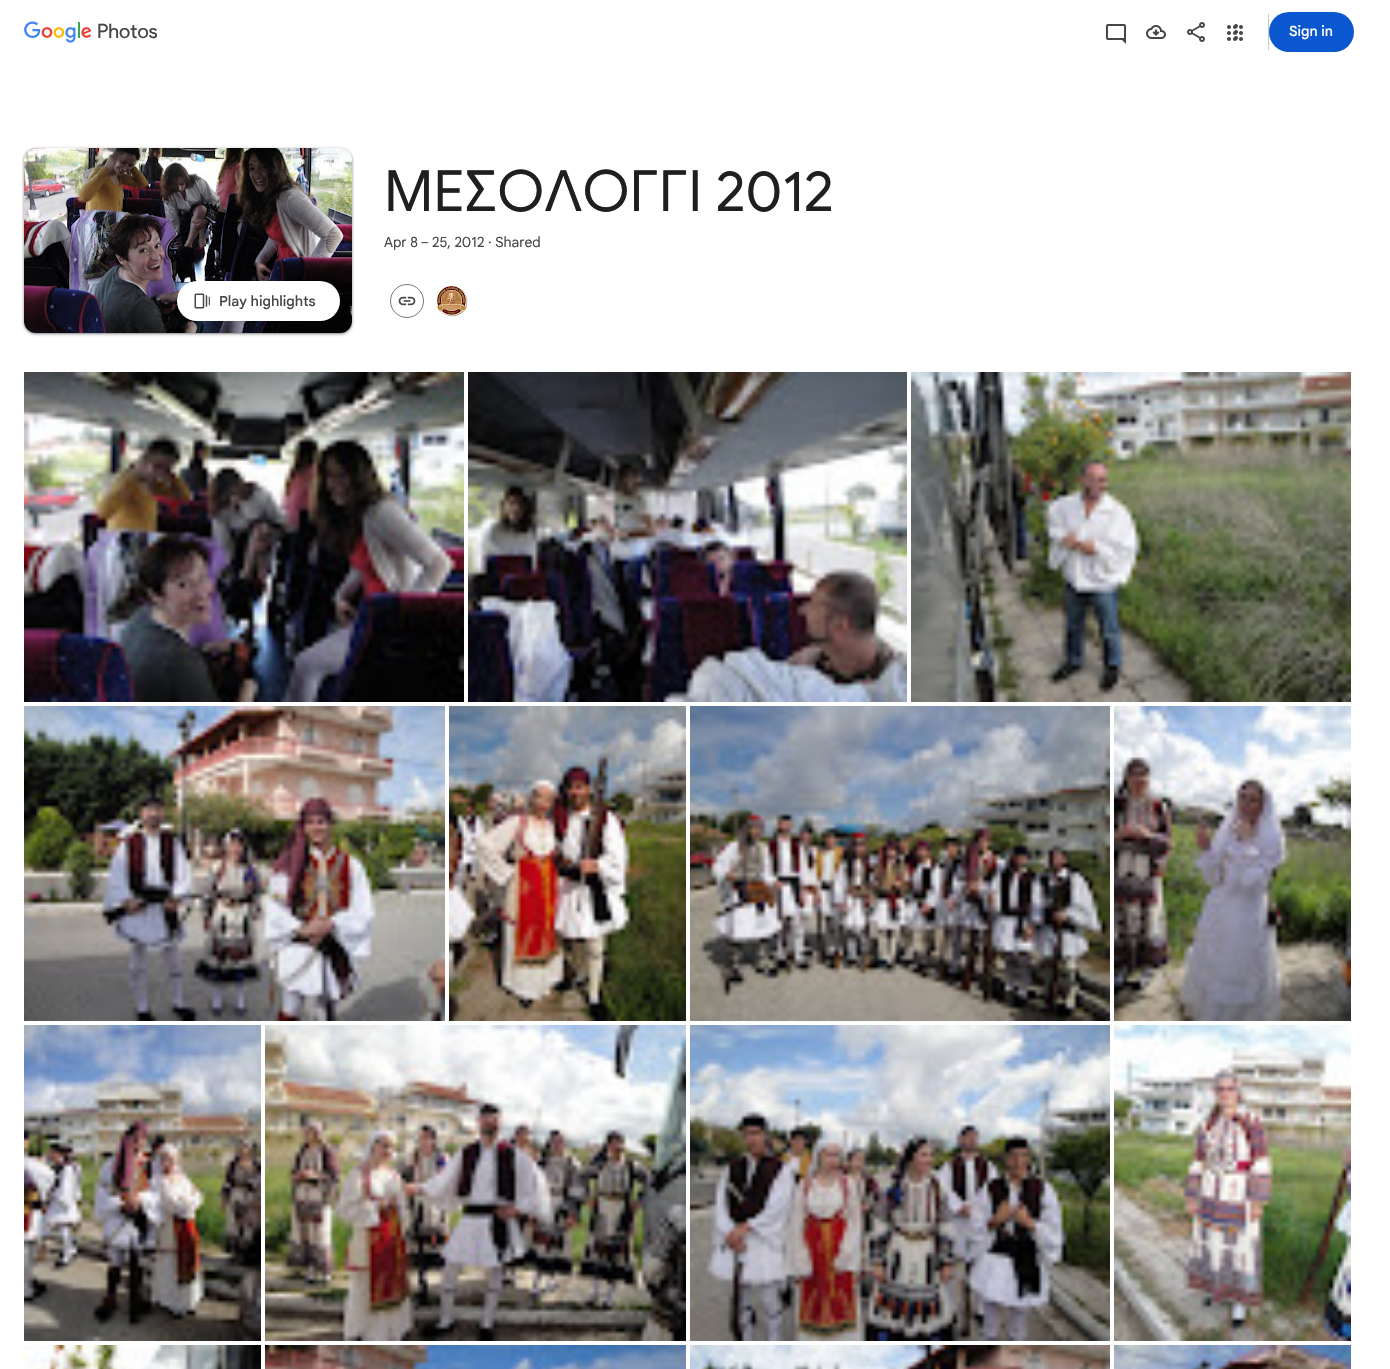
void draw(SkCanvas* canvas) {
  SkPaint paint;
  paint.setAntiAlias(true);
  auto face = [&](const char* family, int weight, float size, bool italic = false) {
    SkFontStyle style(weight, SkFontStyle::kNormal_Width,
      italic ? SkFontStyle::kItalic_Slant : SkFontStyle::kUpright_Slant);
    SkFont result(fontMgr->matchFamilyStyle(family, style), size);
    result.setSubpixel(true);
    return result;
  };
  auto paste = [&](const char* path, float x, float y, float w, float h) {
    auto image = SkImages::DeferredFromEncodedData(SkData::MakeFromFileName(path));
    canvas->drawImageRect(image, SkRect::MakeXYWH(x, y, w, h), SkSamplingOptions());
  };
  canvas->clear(0xffffffff);
  paste("img/1.png", 24, 21, 68, 22);
  paste("img/2.png", 1106, 24, 20, 20);
  paste("img/3.png", 1146, 25, 20, 14);
  paste("img/4.png", 1187, 22, 18, 20);
  paste("img/5.png", 1234, 24, 4, 16);
  paint.setColor(0xffc4c7c5);
  canvas->drawRect(SkRect::MakeXYWH(1268, 14, 1, 36), paint);
  paint.setStroke(true);
  paint.setStrokeWidth(1);
  paint.setColor(0xff747775);
  canvas->drawCircle(407, 301, 16.5f, paint);
  paste("img/6.png", 398, 296, 18, 10);
  paste("img/7.png", 436, 285, 32, 32);
  paint.setStroke(false);
  paint.setColor(0x26000000);
  paint.setMaskFilter(SkMaskFilter::MakeBlur(kNormal_SkBlurStyle, 1.5f));
  canvas->drawRoundRect(SkRect::MakeXYWH(23, 148, 330, 187), 13, 13, paint);
  paint.setMaskFilter(nullptr);
  paint.setColor(0x4d000000);
  paint.setMaskFilter(SkMaskFilter::MakeBlur(kNormal_SkBlurStyle, 1));
  canvas->drawRoundRect(SkRect::MakeXYWH(24, 149, 328, 185), 12, 12, paint);
  paint.setMaskFilter(nullptr);
  paste("img/8.png", 24, 148, 328, 185);
  paint.setColor(0xffffffff);
  canvas->drawRoundRect(SkRect::MakeXYWH(177, 281, 163, 40), 20, 20, paint);
  paste("img/9.png", 194, 293, 16, 16);
  paste("img/10.png", 24, 372, 440, 330);
  paste("img/11.png", 468, 372, 439, 330);
  paste("img/12.png", 911, 372, 440, 330);
  paste("img/13.png", 24, 706, 421, 315);
  paste("img/14.png", 449, 706, 237, 315);
  paste("img/15.png", 690, 706, 420, 315);
  paste("img/16.png", 1114, 706, 237, 315);
  paste("img/17.png", 24, 1025, 237, 316);
  paste("img/18.png", 265, 1025, 421, 316);
  paste("img/19.png", 690, 1025, 420, 316);
  paste("img/20.png", 1114, 1025, 237, 316);
  paste("img/21.png", 24, 1345, 237, 24);
  paste("img/22.png", 265, 1345, 421, 24);
  paste("img/23.png", 690, 1345, 420, 24);
  paste("img/24.png", 1114, 1345, 237, 24);
  paste("img/25.png", 1227, 25, 16, 16);
  paint.setColor(0xff0b57d0);
  canvas->drawRoundRect(SkRect::MakeXYWH(1269, 12, 85, 40), 20, 20, paint);
  auto f0 = face("Product Sans", 400, 20);
  paint.setColor(0xff444746);
  canvas->drawString("Photos", 97, 38, f0, paint);
  auto f1 = face("Google Sans", 400, 57);
  paint.setColor(0xff1f1f1f);
  canvas->drawString("ΜΕΣΟΛΟΓΓΙ 2012", 384, 211, f1, paint);
  auto f2 = face("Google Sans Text", 400, 14);
  paint.setColor(0xff444746);
  canvas->drawString("Apr 8 – 25, 2012 · Shared", 384, 247, f2, paint);
  auto f3 = face("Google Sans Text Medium", 500, 14);
  canvas->drawString("Play highlights", 219, 306, f3, paint);
  paint.setColor(0xffffffff);
  canvas->drawString("Sign in", 1289, 36, f3, paint);
}
